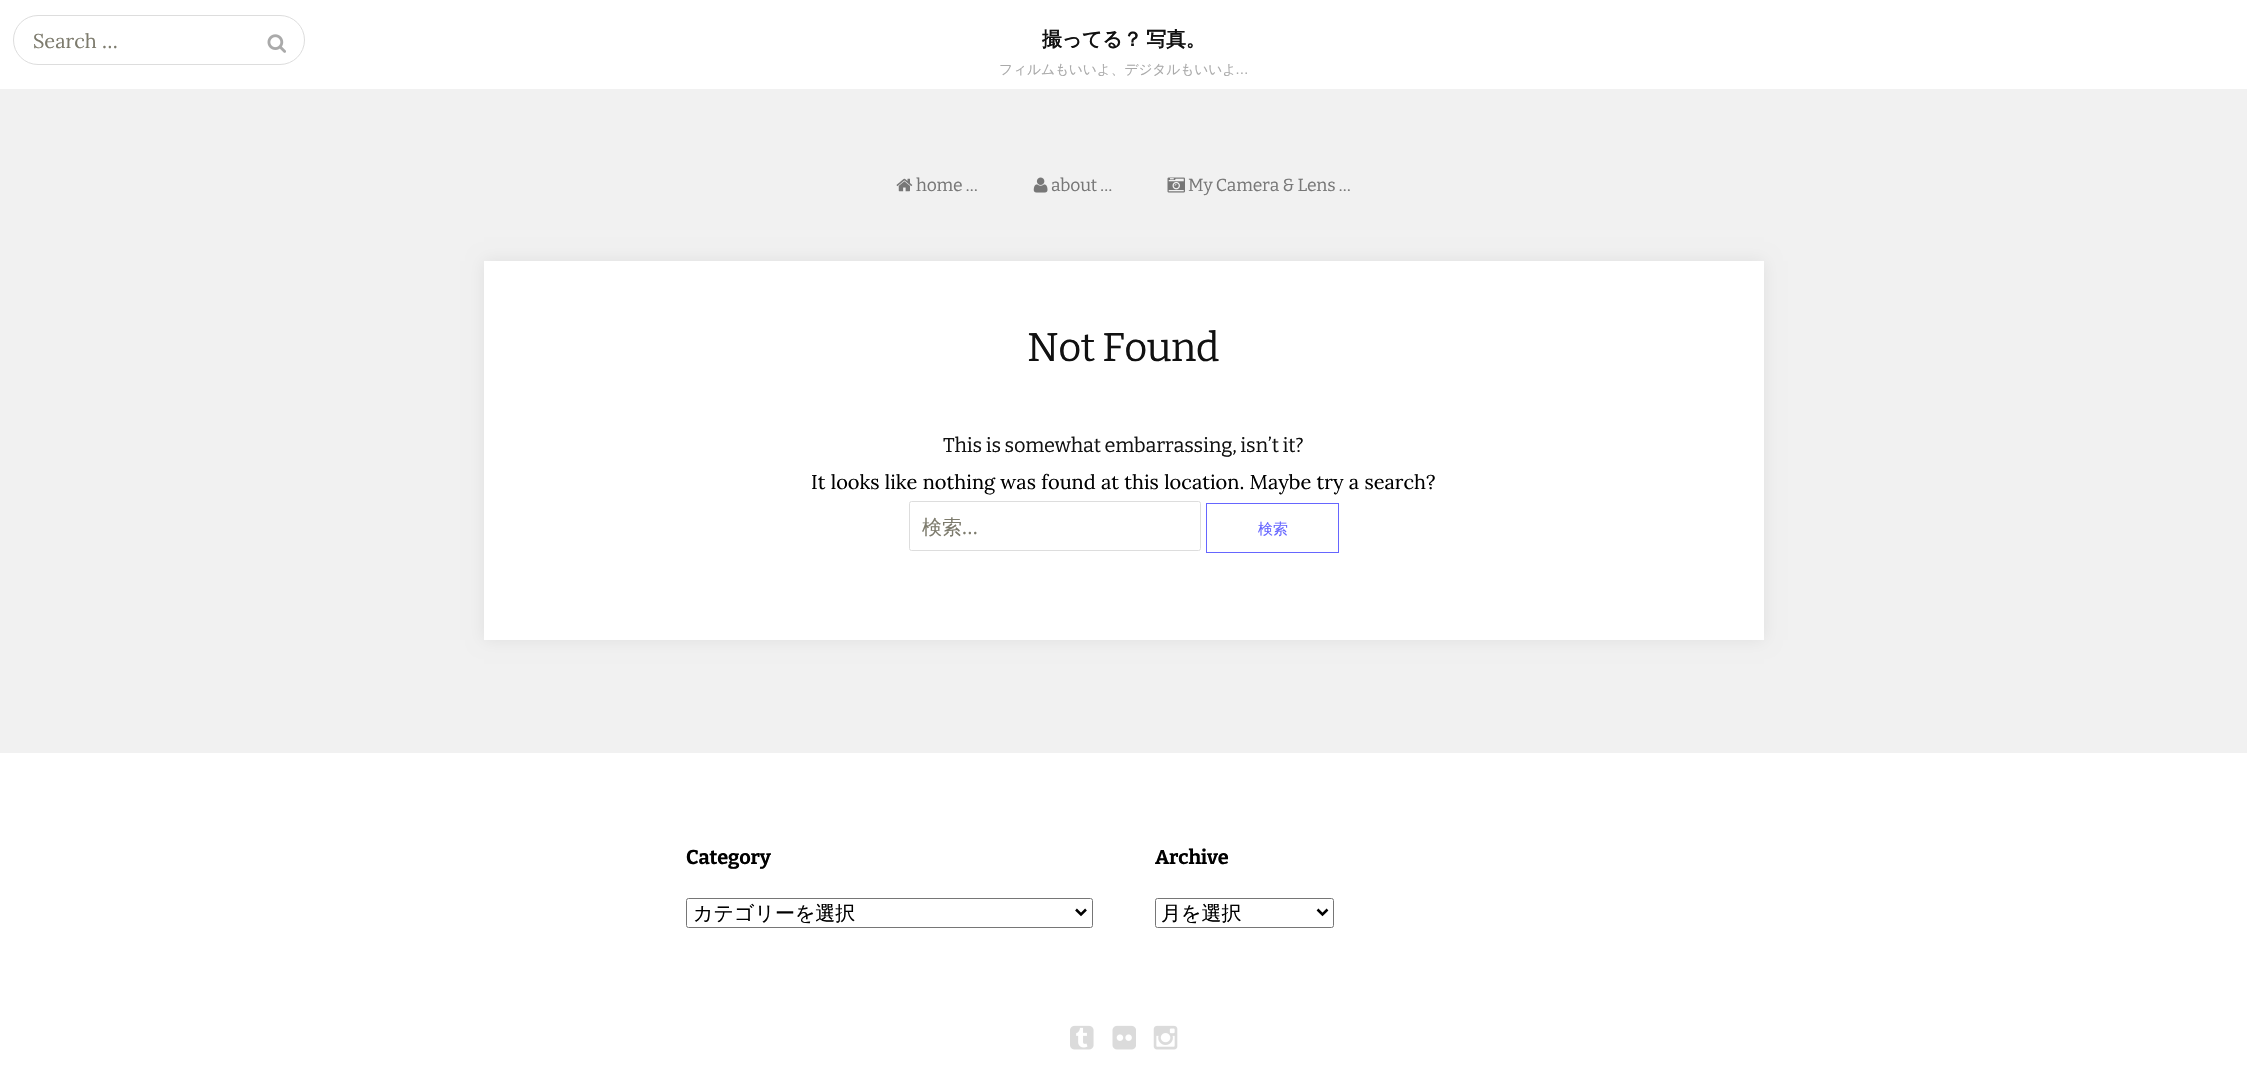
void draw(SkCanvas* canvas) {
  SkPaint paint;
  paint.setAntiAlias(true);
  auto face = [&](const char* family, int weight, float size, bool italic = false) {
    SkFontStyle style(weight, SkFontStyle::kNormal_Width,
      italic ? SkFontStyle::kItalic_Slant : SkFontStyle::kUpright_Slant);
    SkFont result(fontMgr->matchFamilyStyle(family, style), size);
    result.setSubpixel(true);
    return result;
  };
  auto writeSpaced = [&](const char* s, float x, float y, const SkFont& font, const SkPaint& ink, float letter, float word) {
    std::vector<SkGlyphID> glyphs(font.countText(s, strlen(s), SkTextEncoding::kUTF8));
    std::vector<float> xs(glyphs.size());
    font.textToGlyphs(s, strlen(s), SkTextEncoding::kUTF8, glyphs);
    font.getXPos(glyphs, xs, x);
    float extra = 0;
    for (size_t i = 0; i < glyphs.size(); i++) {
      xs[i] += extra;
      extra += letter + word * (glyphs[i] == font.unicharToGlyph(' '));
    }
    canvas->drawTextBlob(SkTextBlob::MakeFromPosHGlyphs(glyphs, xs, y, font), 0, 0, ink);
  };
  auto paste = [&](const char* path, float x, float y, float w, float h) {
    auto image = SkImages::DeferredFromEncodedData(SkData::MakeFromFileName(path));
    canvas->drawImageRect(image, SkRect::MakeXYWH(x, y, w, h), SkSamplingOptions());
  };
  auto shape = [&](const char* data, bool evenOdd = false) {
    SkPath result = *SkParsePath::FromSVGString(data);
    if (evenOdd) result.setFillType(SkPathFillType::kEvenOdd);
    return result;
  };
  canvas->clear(0xffffffff);
  paint.setStroke(true);
  paint.setStrokeWidth(1);
  paint.setColor(0xffdddddd);
  canvas->drawRoundRect(SkRect::MakeXYWH(13.5f, 15.5f, 291, 49), 24.5f, 24.5f, paint);
  paste("img/1.png", 267, 34, 19, 19);
  paint.setStroke(false);
  paint.setColor(0xfff1f1f1);
  canvas->drawRect(SkRect::MakeXYWH(0, 89, 2247, 664), paint);
  paste("img/2.png", 896, 178, 17, 14);
  paste("img/3.png", 1033, 177, 15, 16);
  paste("img/4.png", 1167, 177, 18, 16);
  paint.setColor(0x12000000);
  paint.setMaskFilter(SkMaskFilter::MakeBlur(kNormal_SkBlurStyle, 8));
  canvas->drawRect(SkRect::MakeXYWH(484, 261, 1280, 379), paint);
  paint.setMaskFilter(nullptr);
  paint.setColor(0xffffffff);
  canvas->drawRect(SkRect::MakeXYWH(484, 261, 1280, 379), paint);
  paint.setStroke(true);
  paint.setColor(0xffdddddd);
  canvas->drawRoundRect(SkRect::MakeXYWH(909.5f, 501.5f, 291, 49), 2, 2, paint);
  paint.setColor(0xff6666ff);
  canvas->drawRect(SkRect::MakeXYWH(1206.5f, 503.5f, 132, 49), paint);
  paint.setColor(0xff767676);
  canvas->drawRoundRect(SkRect::MakeXYWH(686.5f, 898.5f, 406, 29), 2, 2, paint);
  paint.setStrokeWidth(2.5f);
  paint.setColor(0xff000000);
  canvas->drawPath(shape("M1076 909.5L1081 914.5L1086 909.5"), paint);
  paint.setStrokeWidth(1);
  paint.setColor(0xff767676);
  canvas->drawRoundRect(SkRect::MakeXYWH(1155.5f, 898.5f, 178, 29), 2, 2, paint);
  paint.setStrokeWidth(2.5f);
  paint.setColor(0xff000000);
  canvas->drawPath(shape("M1317.5 909.5L1322.5 914.5L1327.5 909.5"), paint);
  paste("img/5.png", 1070, 1025, 24, 25);
  paste("img/6.png", 1112, 1025, 24, 25);
  paste("img/7.png", 1153, 1025, 25, 25);
  auto f0 = face("Lora", 400, 20);
  paint.setStroke(false);
  paint.setColor(0xff7d7b6d);
  canvas->drawString("Search …", 33, 48, f0, paint);
  auto f1 = face("WenQuanYi Zen Hei", 700, 20);
  paint.setColor(0xff111111);
  writeSpaced("撮ってる？ 写真。", 1042, 46, f1, paint, -0.2f, -2);
  auto f2 = face("WenQuanYi Zen Hei", 500, 13.75f);
  paint.setColor(0xffaaaaaa);
  writeSpaced("フィルムもいいよ、デジタルもいいよ", 999, 74, f2, paint, -0.1f, 0);
  auto f3 = face("Liberation Sans", 400, 13.75f);
  writeSpaced("…", 1235, 74, f3, paint, -0.1f, 0);
  auto f4 = face("Bitter", 400, 17.5f);
  paint.setColor(0xff777777);
  {
    const struct { const char* s; float x, y; } items[] = {
      {"home …", 916, 191},
      {"about …", 1051, 191},
      {"My Camera & Lens …", 1188, 191},
    };
    for (auto [s, x, y] : items) {
      writeSpaced(s, x, y, f4, paint, -0.2f, 0);
    }
  }
  auto f5 = face("Bitter", 400, 40);
  paint.setColor(0xff111111);
  writeSpaced("Not Found", 1027, 361, f5, paint, -0.5f, 0);
  auto f6 = face("Bitter", 400, 20);
  writeSpaced("This is somewhat embarrassing, isn’t it?", 943, 452, f6, paint, -0.2f, 0);
  paint.setColor(0xff000000);
  canvas->drawString("It looks like nothing was found at this location. Maybe try a search?", 811, 489, f0, paint);
  auto f7 = face("WenQuanYi Zen Hei", 500, 20);
  paint.setColor(0xff7d7b6d);
  canvas->drawString("検索", 922, 534, f7, paint);
  canvas->drawString("…", 962, 534, f0, paint);
  auto f8 = face("WenQuanYi Zen Hei", 500, 15);
  paint.setColor(0xff6666ff);
  canvas->drawString("検索", 1258, 534, f8, paint);
  auto f9 = face("Bitter", 700, 20);
  paint.setColor(0xff000000);
  writeSpaced("Category", 686, 864, f9, paint, -0.2f, 0);
  canvas->drawString("カテゴリーを選択", 693, 920, f7, paint);
  writeSpaced("Archive", 1155, 864, f9, paint, -0.2f, 0);
  canvas->drawString("月を選択", 1161, 920, f7, paint);
}
